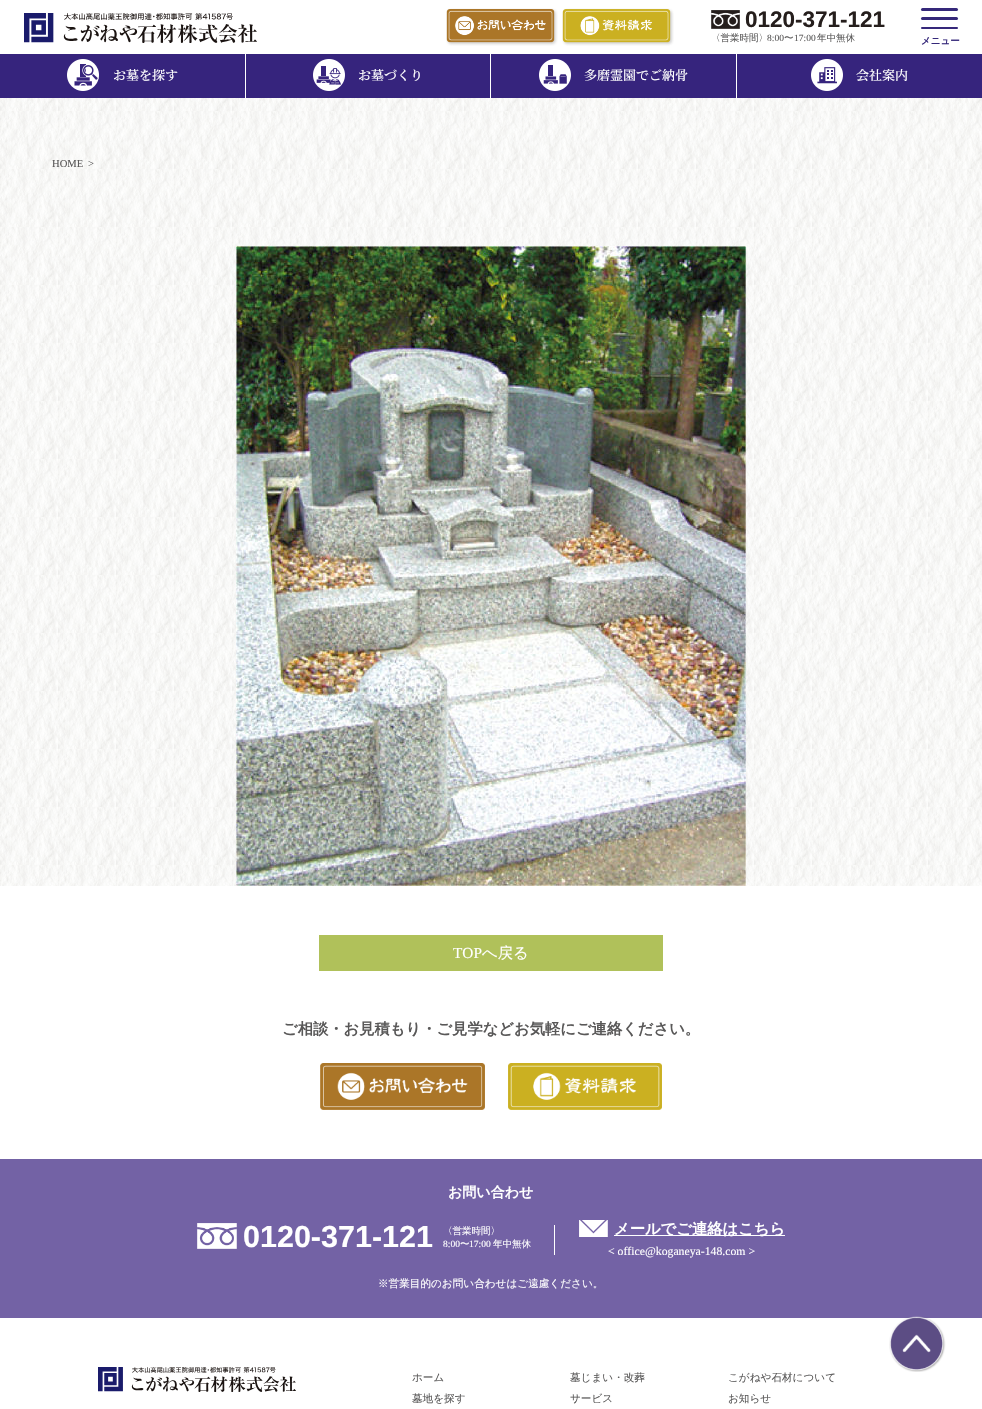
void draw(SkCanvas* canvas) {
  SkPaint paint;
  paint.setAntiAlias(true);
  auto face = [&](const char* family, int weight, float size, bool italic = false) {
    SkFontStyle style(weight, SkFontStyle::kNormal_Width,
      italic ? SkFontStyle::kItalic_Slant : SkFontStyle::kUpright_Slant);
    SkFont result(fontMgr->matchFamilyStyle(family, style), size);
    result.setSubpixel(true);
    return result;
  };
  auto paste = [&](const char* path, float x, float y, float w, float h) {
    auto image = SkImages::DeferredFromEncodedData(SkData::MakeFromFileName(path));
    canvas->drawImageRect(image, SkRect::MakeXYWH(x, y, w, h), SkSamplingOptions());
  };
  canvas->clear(0xffffffff);
  paste("img/1.png", 0, 98, 982, 788);
  paste("img/2.png", 24, 13, 233, 30);
  paste("img/3.png", 446, 8, 112, 38);
  paste("img/4.png", 562, 8, 112, 38);
  paste("img/5.png", 711, 10, 29, 19);
  paint.setColor(0xff35287a);
  canvas->drawRoundRect(SkRect::MakeXYWH(921, 8, 37, 3), 1.5f, 1.5f, paint);
  canvas->drawRoundRect(SkRect::MakeXYWH(921, 17, 37, 3), 1.5f, 1.5f, paint);
  canvas->drawRoundRect(SkRect::MakeXYWH(921, 27, 37, 2), 1, 1, paint);
  paint.setColor(0xff36247d);
  canvas->drawRect(SkRect::MakeXYWH(0, 54, 490, 44), paint);
  paint.setColor(0xffffffff);
  canvas->drawRect(SkRect::MakeXYWH(245, 53, 1, 45), paint);
  paste("img/6.png", 67, 59, 32, 32);
  paste("img/7.png", 313, 59, 32, 32);
  paint.setColor(0xff36247d);
  canvas->drawRect(SkRect::MakeXYWH(491, 54, 491, 44), paint);
  paint.setColor(0xffffffff);
  canvas->drawRect(SkRect::MakeXYWH(736, 53, 1, 45), paint);
  paste("img/8.png", 539, 59, 32, 32);
  paste("img/9.png", 811, 59, 32, 32);
  paste("img/10.png", 236, 246, 510, 640);
  paint.setColor(0xffb0c15a);
  canvas->drawRect(SkRect::MakeXYWH(319, 935, 344, 36), paint);
  paste("img/11.png", 320, 1063, 165, 47);
  paste("img/12.png", 508, 1063, 154, 47);
  paint.setColor(0xff7362a5);
  canvas->drawRect(SkRect::MakeXYWH(0, 1159, 982, 159), paint);
  paint.setColor(0xffffffff);
  canvas->drawRect(SkRect::MakeXYWH(554, 1225, 1, 30), paint);
  paste("img/13.png", 197, 1223, 40, 26);
  paste("img/14.png", 579, 1220, 29, 17);
  canvas->drawRect(SkRect::MakeXYWH(614, 1235, 171, 1), paint);
  paste("img/15.png", 98, 1367, 198, 25);
  paste("img/16.png", 889, 1316, 57, 56);
  auto f0 = face("Liberation Sans", 700, 22.5f);
  paint.setColor(0xff251e1c);
  canvas->drawString("0120-371-121", 745, 27, f0, paint);
  auto f1 = face("WenQuanYi Zen Hei", 500, 9.5f);
  paint.setColor(0xff595858);
  canvas->drawString("〈営業時間〉", 711, 41, f1, paint);
  auto f2 = face("Liberation Serif", 400, 9.5f);
  canvas->drawString("8:00", 767, 41, f2, paint);
  canvas->drawString("〜", 784, 41, f1, paint);
  canvas->drawString("17:00", 794, 41, f2, paint);
  canvas->drawString("年中無休", 817, 41, f1, paint);
  auto f3 = face("WenQuanYi Zen Hei", 700, 9.5f);
  paint.setColor(0xff35287a);
  canvas->drawString("メニュー", 921, 44, f3, paint);
  auto f4 = face("Noto Serif JP", 500, 13);
  paint.setColor(0xffffffff);
  {
    const struct { const char* s; float x, y; } items[] = {
      {"お墓を探す", 113, 80},
      {"お墓づくり", 358, 80},
      {"多磨霊園でご納骨", 584, 80},
      {"会社案内", 856, 80},
    };
    for (auto [s, x, y] : items) {
      canvas->drawString(s, x, y, f4, paint);
    }
  }
  auto f5 = face("Liberation Serif", 400, 10.6f);
  paint.setColor(0xff595858);
  canvas->drawString("HOME", 52, 167, f5, paint);
  canvas->drawString(">", 88, 167, f5, paint);
  auto f6 = face("Liberation Serif", 400, 15.3f);
  paint.setColor(0xffffffff);
  canvas->drawString("TOP", 453, 958, f6, paint);
  auto f7 = face("WenQuanYi Zen Hei", 500, 15.3f);
  canvas->drawString("へ戻る", 482, 958, f7, paint);
  auto f8 = face("WenQuanYi Zen Hei", 700, 15.3f);
  paint.setColor(0xff595858);
  canvas->drawString("ご相談・お見積もり・ご見学などお気軽にご連絡ください。", 282, 1034, f8, paint);
  auto f9 = face("WenQuanYi Zen Hei", 700, 14);
  paint.setColor(0xffffffff);
  canvas->drawString("お問い合わせ", 448, 1197, f9, paint);
  auto f10 = face("Liberation Sans", 700, 30.5f);
  canvas->drawString("0120-371-121", 243, 1247, f10, paint);
  canvas->drawString("〈営業時間〉", 443, 1234, f1, paint);
  canvas->drawString("8:00", 443, 1247, f2, paint);
  canvas->drawString("〜", 460, 1247, f1, paint);
  canvas->drawString("17:00", 469, 1247, f2, paint);
  canvas->drawString("年中無休", 493, 1247, f1, paint);
  canvas->drawString("メールでご連絡はこちら", 614, 1234, f8, paint);
  auto f11 = face("Liberation Serif", 400, 11.75f);
  canvas->drawString("< office@koganeya-148.com >", 608, 1255, f11, paint);
  auto f12 = face("WenQuanYi Zen Hei", 500, 10.6f);
  canvas->drawString("※営業目的のお問い合わせはご遠慮ください。", 378, 1287, f12, paint);
  paint.setColor(0xff595858);
  {
    const struct { const char* s; float x, y; } items[] = {
      {"ホーム", 412, 1381},
      {"墓地を探す", 412, 1402},
      {"墓じまい・改葬", 570, 1381},
      {"サービス", 570, 1402},
      {"こがねや石材について", 728, 1381},
      {"お知らせ", 728, 1402},
    };
    for (auto [s, x, y] : items) {
      canvas->drawString(s, x, y, f12, paint);
    }
  }
}
